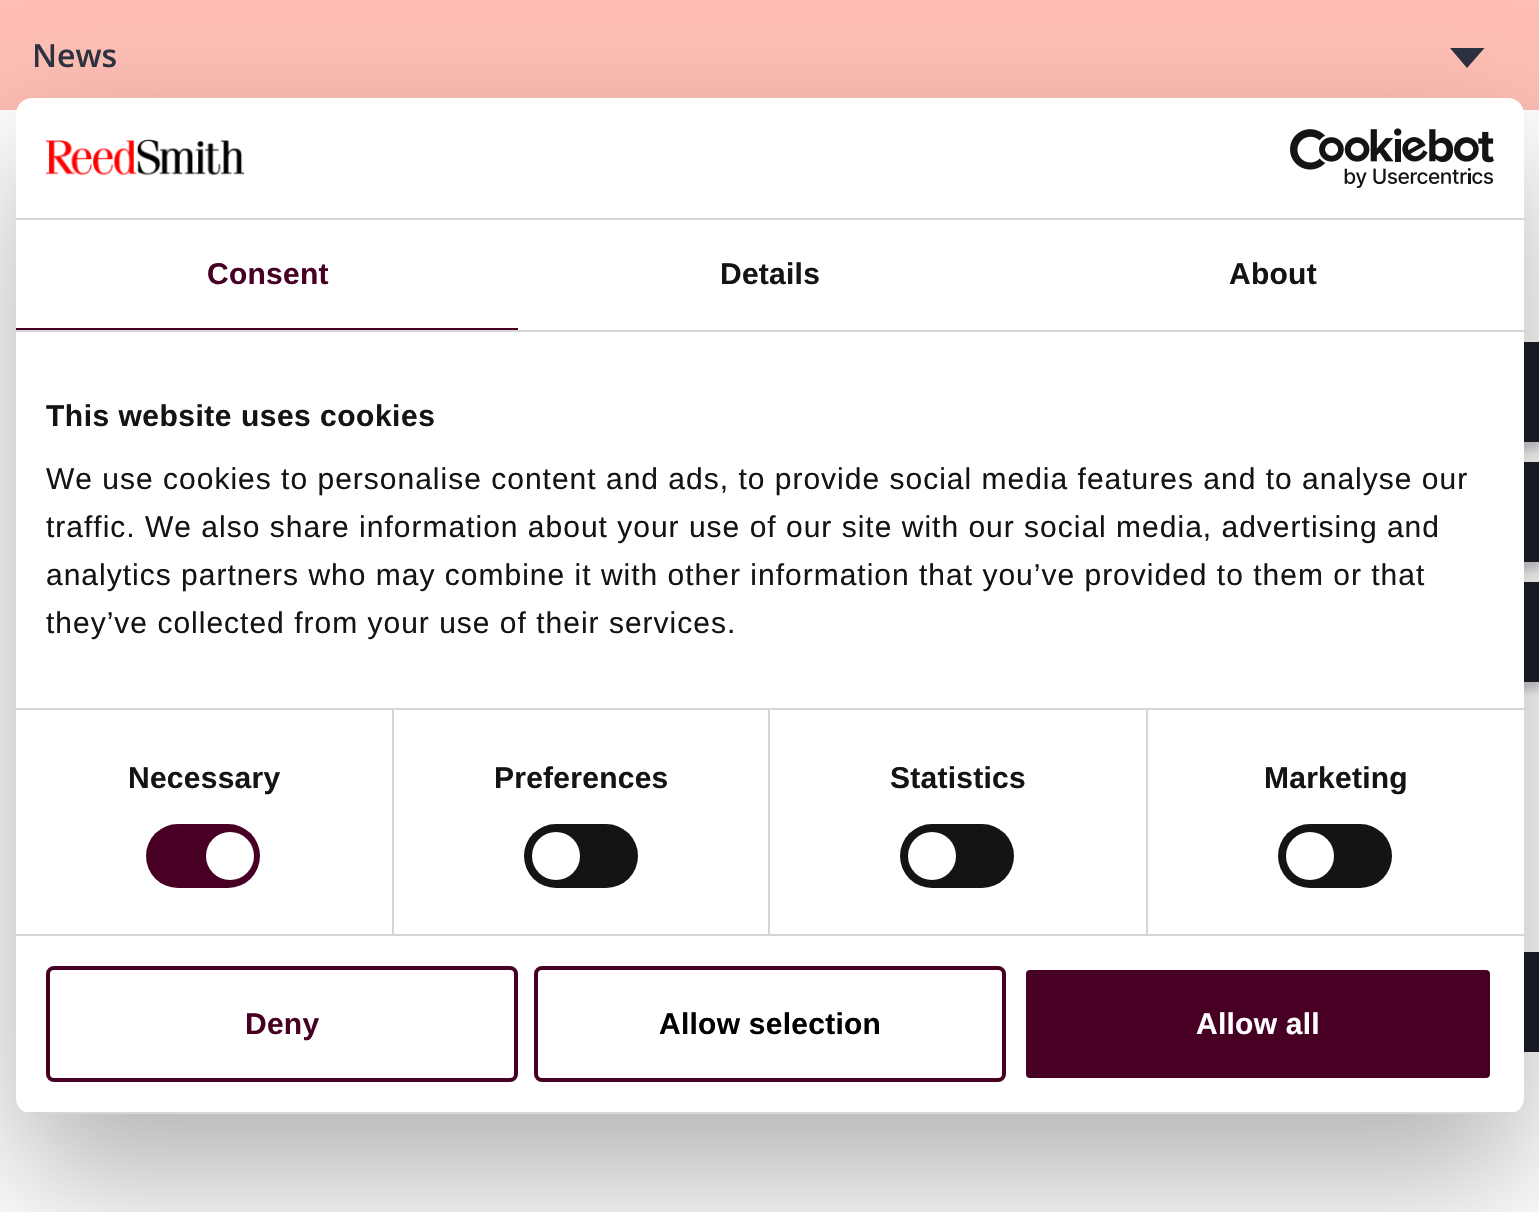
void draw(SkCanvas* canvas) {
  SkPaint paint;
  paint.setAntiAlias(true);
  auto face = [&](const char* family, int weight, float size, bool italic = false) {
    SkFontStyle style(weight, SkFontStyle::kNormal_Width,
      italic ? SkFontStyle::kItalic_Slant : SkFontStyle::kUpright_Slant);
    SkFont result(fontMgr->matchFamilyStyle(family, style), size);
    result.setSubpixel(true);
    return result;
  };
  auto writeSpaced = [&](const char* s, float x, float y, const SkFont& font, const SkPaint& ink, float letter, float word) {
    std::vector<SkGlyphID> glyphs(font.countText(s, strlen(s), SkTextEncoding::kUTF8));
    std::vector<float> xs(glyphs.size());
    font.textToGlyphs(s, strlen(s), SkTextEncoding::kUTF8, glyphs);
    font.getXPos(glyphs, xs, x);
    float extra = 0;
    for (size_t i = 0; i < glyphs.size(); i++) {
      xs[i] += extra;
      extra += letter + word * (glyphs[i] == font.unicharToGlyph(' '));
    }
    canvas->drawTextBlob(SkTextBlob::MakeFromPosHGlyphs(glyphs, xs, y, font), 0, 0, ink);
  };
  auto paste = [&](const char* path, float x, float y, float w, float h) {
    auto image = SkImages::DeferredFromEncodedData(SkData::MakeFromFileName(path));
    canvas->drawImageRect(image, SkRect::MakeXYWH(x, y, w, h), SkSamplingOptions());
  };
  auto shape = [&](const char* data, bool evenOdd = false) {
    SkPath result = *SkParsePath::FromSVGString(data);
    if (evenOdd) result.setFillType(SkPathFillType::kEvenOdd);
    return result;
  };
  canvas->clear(0xffffffff);
  paint.setColor(0xfffebeb4);
  canvas->drawRect(SkRect::MakeXYWH(0, 0, 1539, 110), paint);
  paint.setColor(0xff2d3241);
  canvas->drawPath(shape("M1450 48L1467 68L1484.5 48"), paint);
  paint.setColor(0x402d3241);
  paint.setMaskFilter(SkMaskFilter::MakeBlur(kNormal_SkBlurStyle, 4));
  canvas->drawRect(SkRect::MakeXYWH(1452, 350, 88, 100), paint);
  paint.setMaskFilter(nullptr);
  paint.setColor(0xff1a1e29);
  canvas->drawRect(SkRect::MakeXYWH(1524, 342, 15, 100), paint);
  paint.setColor(0x402d3241);
  paint.setMaskFilter(SkMaskFilter::MakeBlur(kNormal_SkBlurStyle, 4));
  canvas->drawRect(SkRect::MakeXYWH(1452, 470, 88, 100), paint);
  paint.setMaskFilter(nullptr);
  paint.setColor(0xff1a1e29);
  canvas->drawRect(SkRect::MakeXYWH(1524, 462, 15, 100), paint);
  paint.setColor(0x402d3241);
  paint.setMaskFilter(SkMaskFilter::MakeBlur(kNormal_SkBlurStyle, 4));
  canvas->drawRect(SkRect::MakeXYWH(1452, 590, 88, 100), paint);
  paint.setMaskFilter(nullptr);
  paint.setColor(0xff1a1e29);
  canvas->drawRect(SkRect::MakeXYWH(1524, 582, 15, 100), paint);
  canvas->drawRect(SkRect::MakeXYWH(1524, 952, 15, 100), paint);
  paint.setColor(0x4d000000);
  paint.setMaskFilter(SkMaskFilter::MakeBlur(kNormal_SkBlurStyle, 68));
  canvas->drawRoundRect(SkRect::MakeXYWH(16, 162, 1508, 1016), 16, 16, paint);
  paint.setMaskFilter(nullptr);
  paint.setColor(0xffffffff);
  canvas->drawRoundRect(SkRect::MakeXYWH(16, 98, 1508, 1016), 16, 16, paint);
  paint.setColor(0xffd6d6d6);
  canvas->drawRect(SkRect::MakeXYWH(16, 218, 1508, 2), paint);
  paste("img/1.png", 46, 139, 198, 37);
  paste("img/2.png", 1290, 128, 204, 60);
  {
    const struct { float x, y, w, h; SkColor color; } items[] = {
      {16, 330, 1508, 2, 0xffd6d6d6},
      {16, 328, 502, 2, 0xff470024},
      {16, 708, 1508, 2, 0xffd6d6d6},
      {16, 934, 1508, 2, 0xffd6d6d6},
      {392, 710, 2, 224, 0xffd6d6d6},
    };
    for (auto [x, y, w, h, color] : items) {
      paint.setColor(color);
      canvas->drawRect(SkRect::MakeXYWH(x, y, w, h), paint);
    }
  }
  paint.setColor(0xff470024);
  canvas->drawRoundRect(SkRect::MakeXYWH(146, 824, 114, 64), 32, 32, paint);
  paint.setColor(0xffffffff);
  canvas->drawCircle(230, 856, 24, paint);
  paint.setColor(0xffd6d6d6);
  canvas->drawRect(SkRect::MakeXYWH(768, 710, 2, 224), paint);
  paint.setColor(0xff141414);
  canvas->drawRoundRect(SkRect::MakeXYWH(524, 824, 114, 64), 32, 32, paint);
  paint.setColor(0xffffffff);
  canvas->drawCircle(556, 856, 24, paint);
  paint.setColor(0xffd6d6d6);
  canvas->drawRect(SkRect::MakeXYWH(1146, 710, 2, 224), paint);
  paint.setColor(0xff141414);
  canvas->drawRoundRect(SkRect::MakeXYWH(900, 824, 114, 64), 32, 32, paint);
  paint.setColor(0xffffffff);
  canvas->drawCircle(932, 856, 24, paint);
  paint.setColor(0xff141414);
  canvas->drawRoundRect(SkRect::MakeXYWH(1278, 824, 114, 64), 32, 32, paint);
  paint.setColor(0xffffffff);
  canvas->drawCircle(1310, 856, 24, paint);
  canvas->save();
  canvas->clipPath(shape("M32 98H1508C1517 98 1524 105 1524 114V1098C1524 1107 1517 1114 1508 1114H32C23 1114 16 1107 16 1098V114C16 105 23 98 32 98Z"), true);
  paint.setColor(0xffd6d6d6);
  canvas->drawRect(SkRect::MakeXYWH(16, 1112, 1508, 2), paint);
  canvas->restore();
  paint.setStroke(true);
  paint.setStrokeWidth(4);
  paint.setColor(0xff470024);
  canvas->drawRoundRect(SkRect::MakeXYWH(48, 968, 468, 112), 6, 6, paint);
  canvas->drawRoundRect(SkRect::MakeXYWH(536, 968, 468, 112), 6, 6, paint);
  paint.setStroke(false);
  canvas->drawRoundRect(SkRect::MakeXYWH(1024, 968, 468, 112), 6, 6, paint);
  paint.setStroke(true);
  paint.setColor(0xffffffff);
  canvas->drawRoundRect(SkRect::MakeXYWH(1024, 968, 468, 112), 6, 6, paint);
  auto f0 = face("Open Sans", 600, 32);
  paint.setStroke(false);
  paint.setColor(0xff2d3241);
  canvas->drawString("News", 32, 67, f0, paint);
  auto f1 = face("Liberation Sans", 700, 30);
  paint.setColor(0xff470024);
  writeSpaced("Consent", 207, 284, f1, paint, 0.25f, 0);
  paint.setColor(0xff141414);
  writeSpaced("Details", 720, 284, f1, paint, 0.25f, 0);
  writeSpaced("About", 1229, 284, f1, paint, 0.25f, 0);
  writeSpaced("This website uses cookies", 46, 426, f1, paint, 0.5f, 0);
  auto f2 = face("Liberation Sans", 400, 30);
  {
    const struct { const char* s; float x, y; } items[] = {
      {"We use cookies to personalise content and ads, to provide social media features and to analyse our", 46, 489},
      {"traffic. We also share information about your use of our site with our social media, advertising and", 46, 537},
      {"analytics partners who may combine it with other information that you’ve provided to them or that", 46, 585},
      {"they’ve collected from your use of their services.", 46, 633},
    };
    for (auto [s, x, y] : items) {
      writeSpaced(s, x, y, f2, paint, 1, 0);
    }
  }
  {
    const struct { const char* s; float x, y; } items[] = {
      {"Necessary", 128, 788},
      {"Preferences", 494, 788},
      {"Statistics", 890, 788},
      {"Marketing", 1264, 788},
    };
    for (auto [s, x, y] : items) {
      writeSpaced(s, x, y, f1, paint, 0.25f, 0);
    }
  }
  paint.setColor(0xff470024);
  writeSpaced("Deny", 245, 1034, f1, paint, 0.25f, 0);
  paint.setColor(0xff000000);
  writeSpaced("Allow selection", 659, 1034, f1, paint, 0.25f, 0);
  paint.setColor(0xffffffff);
  writeSpaced("Allow all", 1196, 1034, f1, paint, 0.25f, 0);
}
